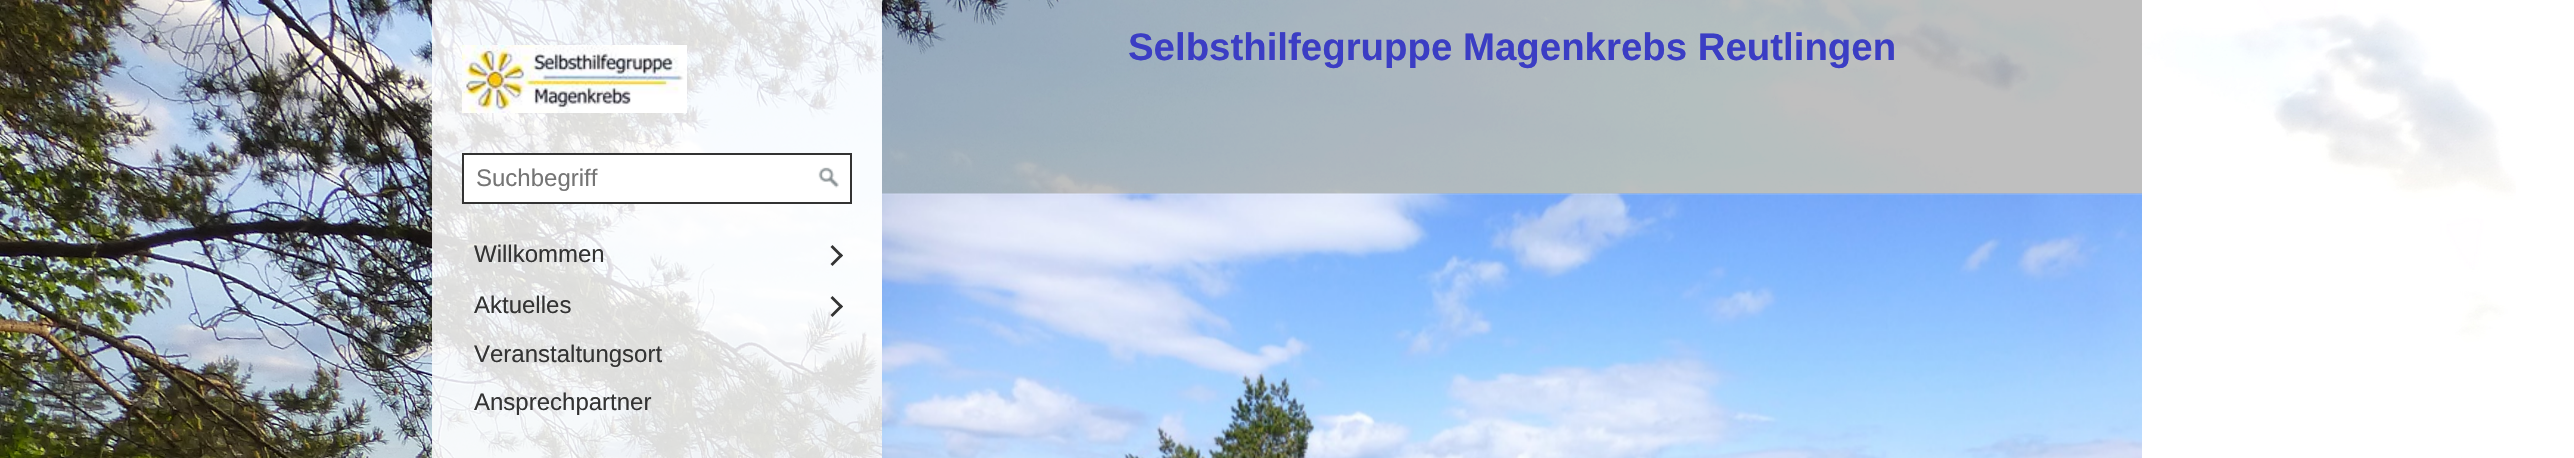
void draw(SkCanvas* canvas) {
  SkPaint paint;
  paint.setAntiAlias(true);
  auto face = [&](const char* family, int weight, float size, bool italic = false) {
    SkFontStyle style(weight, SkFontStyle::kNormal_Width,
      italic ? SkFontStyle::kItalic_Slant : SkFontStyle::kUpright_Slant);
    SkFont result(fontMgr->matchFamilyStyle(family, style), size);
    result.setSubpixel(true);
    return result;
  };
  auto paste = [&](const char* path, float x, float y, float w, float h) {
    auto image = SkImages::DeferredFromEncodedData(SkData::MakeFromFileName(path));
    canvas->drawImageRect(image, SkRect::MakeXYWH(x, y, w, h), SkSamplingOptions());
  };
  auto shape = [&](const char* data, bool evenOdd = false) {
    SkPath result = *SkParsePath::FromSVGString(data);
    if (evenOdd) result.setFillType(SkPathFillType::kEvenOdd);
    return result;
  };
  canvas->clear(0xffffffff);
  paste("img/1.png", 0, 0, 2516, 458);
  paint.setColor(0x40000000);
  canvas->drawRect(SkRect::MakeXYWH(882, 0, 1260, 194), paint);
  paste("img/2.png", 882, 193, 1260, 265);
  paint.setColor(0xd9ffffff);
  canvas->drawRect(SkRect::MakeXYWH(432, 0, 450, 458), paint);
  paste("img/3.png", 462, 45, 225, 68);
  paint.setColor(0xffffffff);
  canvas->drawRect(SkRect::MakeXYWH(463, 154, 388, 49), paint);
  paint.setStroke(true);
  paint.setStrokeWidth(2);
  paint.setColor(0xff333333);
  canvas->drawRect(SkRect::MakeXYWH(463, 154, 388, 49), paint);
  paste("img/4.png", 818, 167, 21, 21);
  paint.setStroke(false);
  canvas->drawPath(shape("M832.5 245L843 255.5L841 257.5L830.5 247Z"), paint);
  canvas->drawPath(shape("M841 253.5L843 255.5L832.5 266L830.5 264Z"), paint);
  canvas->drawPath(shape("M832.5 296L843 306.5L841 308.5L830.5 298Z"), paint);
  canvas->drawPath(shape("M841 304.5L843 306.5L832.5 317L830.5 315Z"), paint);
  auto f0 = face("Liberation Sans", 700, 38.4f);
  paint.setColor(0xff3b3dc4);
  canvas->drawString("Selbsthilfegruppe Magenkrebs Reutlingen", 1128, 60, f0, paint);
  auto f1 = face("Liberation Sans", 400, 24);
  paint.setColor(0xff757575);
  canvas->drawString("Suchbegriff", 476, 186, f1, paint);
  paint.setColor(0xff333333);
  {
    const struct { const char* s; float x, y; } items[] = {
      {"Willkommen", 474, 262},
      {"Aktuelles", 474, 313},
      {"Veranstaltungsort", 474, 362},
      {"Ansprechpartner", 474, 410},
    };
    for (auto [s, x, y] : items) {
      canvas->drawString(s, x, y, f1, paint);
    }
  }
}
